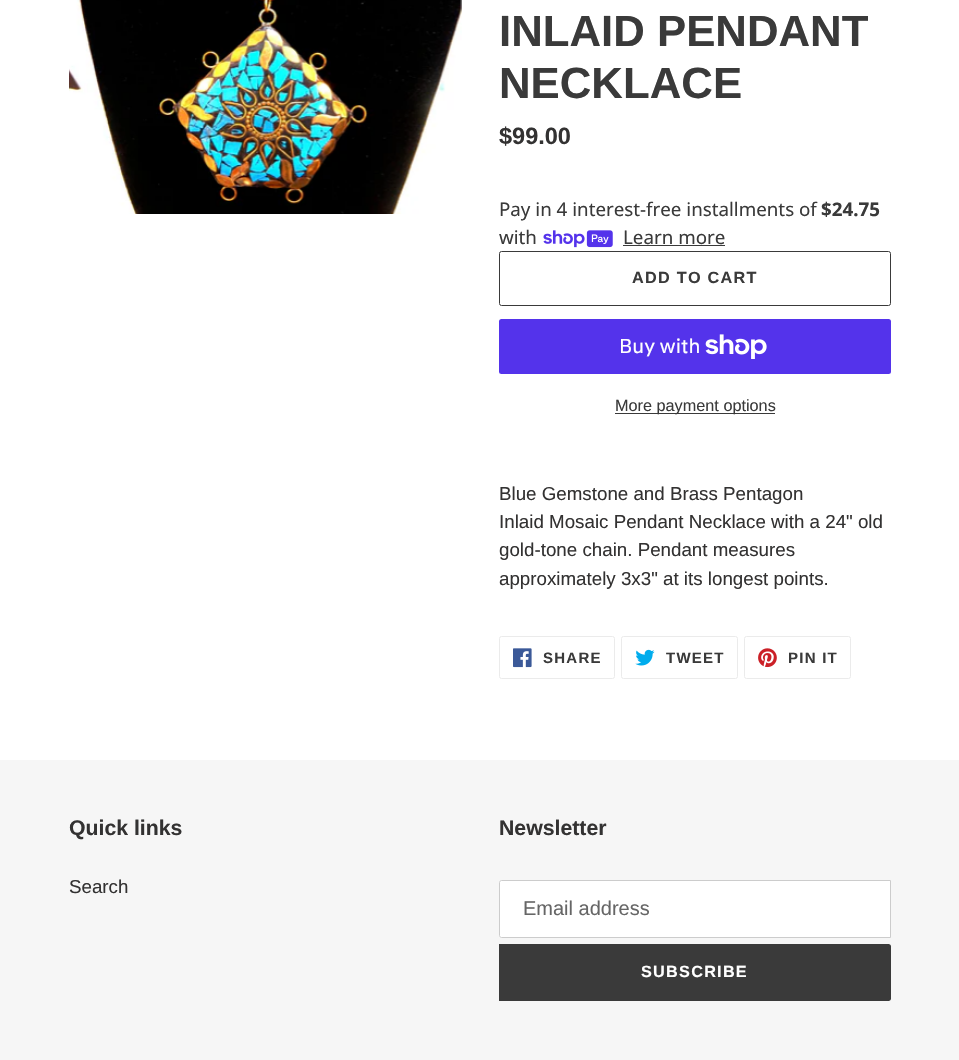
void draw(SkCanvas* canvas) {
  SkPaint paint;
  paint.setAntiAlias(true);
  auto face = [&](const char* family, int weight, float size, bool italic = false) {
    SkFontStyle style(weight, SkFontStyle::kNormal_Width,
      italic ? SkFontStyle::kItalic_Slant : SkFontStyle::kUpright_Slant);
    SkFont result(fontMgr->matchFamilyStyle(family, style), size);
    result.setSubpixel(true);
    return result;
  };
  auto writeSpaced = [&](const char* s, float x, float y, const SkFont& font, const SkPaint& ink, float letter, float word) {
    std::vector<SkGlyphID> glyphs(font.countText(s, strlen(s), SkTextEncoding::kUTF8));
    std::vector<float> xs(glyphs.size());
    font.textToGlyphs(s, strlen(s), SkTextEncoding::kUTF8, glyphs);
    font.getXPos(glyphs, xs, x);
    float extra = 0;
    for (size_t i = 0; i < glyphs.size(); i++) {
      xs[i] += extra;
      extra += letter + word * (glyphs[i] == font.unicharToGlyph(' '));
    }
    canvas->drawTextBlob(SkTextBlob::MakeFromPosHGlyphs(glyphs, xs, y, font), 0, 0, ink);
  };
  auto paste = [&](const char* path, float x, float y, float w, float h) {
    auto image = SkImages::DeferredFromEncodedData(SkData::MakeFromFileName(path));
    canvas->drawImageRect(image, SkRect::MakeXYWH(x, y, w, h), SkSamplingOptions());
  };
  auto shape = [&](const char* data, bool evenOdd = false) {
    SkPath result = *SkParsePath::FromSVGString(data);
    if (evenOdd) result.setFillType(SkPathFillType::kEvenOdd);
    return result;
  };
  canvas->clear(0xffffffff);
  paste("img/1.png", 69, 0, 393, 214);
  paste("img/2.png", 543, 230, 70, 18);
  paint.setColor(0xff3a3a3a);
  canvas->drawRect(SkRect::MakeXYWH(623, 245, 102, 1), paint);
  paint.setStroke(true);
  paint.setStrokeWidth(1);
  canvas->drawRoundRect(SkRect::MakeXYWH(499.5f, 251.5f, 391, 54), 2, 2, paint);
  paint.setStroke(false);
  paint.setColor(0xff5433eb);
  canvas->drawRoundRect(SkRect::MakeXYWH(499, 319, 392, 55), 2.5f, 2.5f, paint);
  paste("img/3.png", 705, 334, 62, 25);
  paint.setColor(0xff3a3a3a);
  canvas->drawRect(SkRect::MakeXYWH(615, 413, 160, 1), paint);
  paint.setStroke(true);
  paint.setColor(0xffebebeb);
  canvas->drawRoundRect(SkRect::MakeXYWH(499.5f, 636.5f, 115, 42), 2, 2, paint);
  paste("img/4.png", 513, 648, 19, 20);
  canvas->drawRoundRect(SkRect::MakeXYWH(621.5f, 636.5f, 116, 42), 2, 2, paint);
  paste("img/5.png", 635, 649, 20, 17);
  canvas->drawRoundRect(SkRect::MakeXYWH(744.5f, 636.5f, 106, 42), 2, 2, paint);
  paste("img/6.png", 758, 648, 19, 20);
  paint.setStroke(false);
  paint.setColor(0xfff6f6f6);
  canvas->drawRect(SkRect::MakeXYWH(0, 760, 959, 300), paint);
  paint.setColor(0xffffffff);
  canvas->drawPath(shape("M501.5 880.5H890.5V937.5H501.5C500.5 937.5 499.5 936.5 499.5 935.5V882.5C499.5 881.5 500.5 880.5 501.5 880.5Z"), paint);
  paint.setStroke(true);
  paint.setColor(0xffcccccc);
  canvas->drawPath(shape("M501.5 880.5H890.5V937.5H501.5C500.5 937.5 499.5 936.5 499.5 935.5V882.5C499.5 881.5 500.5 880.5 501.5 880.5Z"), paint);
  paint.setStroke(false);
  paint.setColor(0xff3a3a3a);
  canvas->drawPath(shape("M499 944H888.5C890 944 891 945 891 946.5V998.5C891 1000 890 1001 888.5 1001H499Z"), paint);
  auto f0 = face("Liberation Sans", 700, 43.75f);
  canvas->drawString("INLAID PENDANT", 499, 46, f0, paint);
  canvas->drawString("NECKLACE", 499, 98, f0, paint);
  auto f1 = face("Liberation Sans", 700, 23.5f);
  paint.setColor(0xff333232);
  canvas->drawString("$99.00", 499, 144, f1, paint);
  auto f2 = face("Noto Sans", 400, 18.75f);
  paint.setColor(0xff3a3a3a);
  canvas->drawString("Pay in 4 interest-free installments of", 499, 216, f2, paint);
  auto f3 = face("Noto Sans", 700, 18.75f);
  canvas->drawString("$24.75", 821, 216, f3, paint);
  canvas->drawString("with", 499, 244, f2, paint);
  canvas->drawString("Learn more", 623, 244, f2, paint);
  auto f4 = face("Liberation Sans", 700, 16.25f);
  writeSpaced("ADD TO CART", 632, 283, f4, paint, 1.25f, 0);
  auto f5 = face("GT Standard", 400, 20);
  paint.setColor(0xffffffff);
  canvas->drawString("Buy with", 619, 353, f5, paint);
  auto f6 = face("Liberation Sans", 400, 16.25f);
  paint.setColor(0xff3a3a3a);
  canvas->drawString("More payment options", 615, 411, f6, paint);
  auto f7 = face("Liberation Sans", 400, 18.75f);
  paint.setColor(0xff333232);
  {
    const struct { const char* s; float x, y; } items[] = {
      {"Blue Gemstone and Brass Pentagon", 499, 500},
      {"Inlaid Mosaic Pendant Necklace with a 24\" old", 499, 528},
      {"gold-tone chain. Pendant measures", 499, 556},
      {"approximately 3x3\" at its longest points.", 499, 585},
    };
    for (auto [s, x, y] : items) {
      canvas->drawString(s, x, y, f7, paint);
    }
  }
  auto f8 = face("Liberation Sans", 700, 15);
  paint.setColor(0xff3a3a3a);
  {
    const struct { const char* s; float x, y; } items[] = {
      {"SHARE", 543, 663},
      {"TWEET", 666, 663},
      {"PIN IT", 788, 663},
    };
    for (auto [s, x, y] : items) {
      writeSpaced(s, x, y, f8, paint, 1.25f, 0);
    }
  }
  auto f9 = face("Liberation Sans", 700, 21.25f);
  paint.setColor(0xff333232);
  canvas->drawString("Quick links", 69, 835, f9, paint);
  canvas->drawString("Search", 69, 893, f7, paint);
  canvas->drawString("Newsletter", 499, 835, f9, paint);
  auto f10 = face("Liberation Sans", 400, 20);
  paint.setColor(0xff666666);
  canvas->drawString("Email address", 523, 915, f10, paint);
  paint.setColor(0xffffffff);
  writeSpaced("SUBSCRIBE", 641, 977, f4, paint, 1.25f, 0);
}
